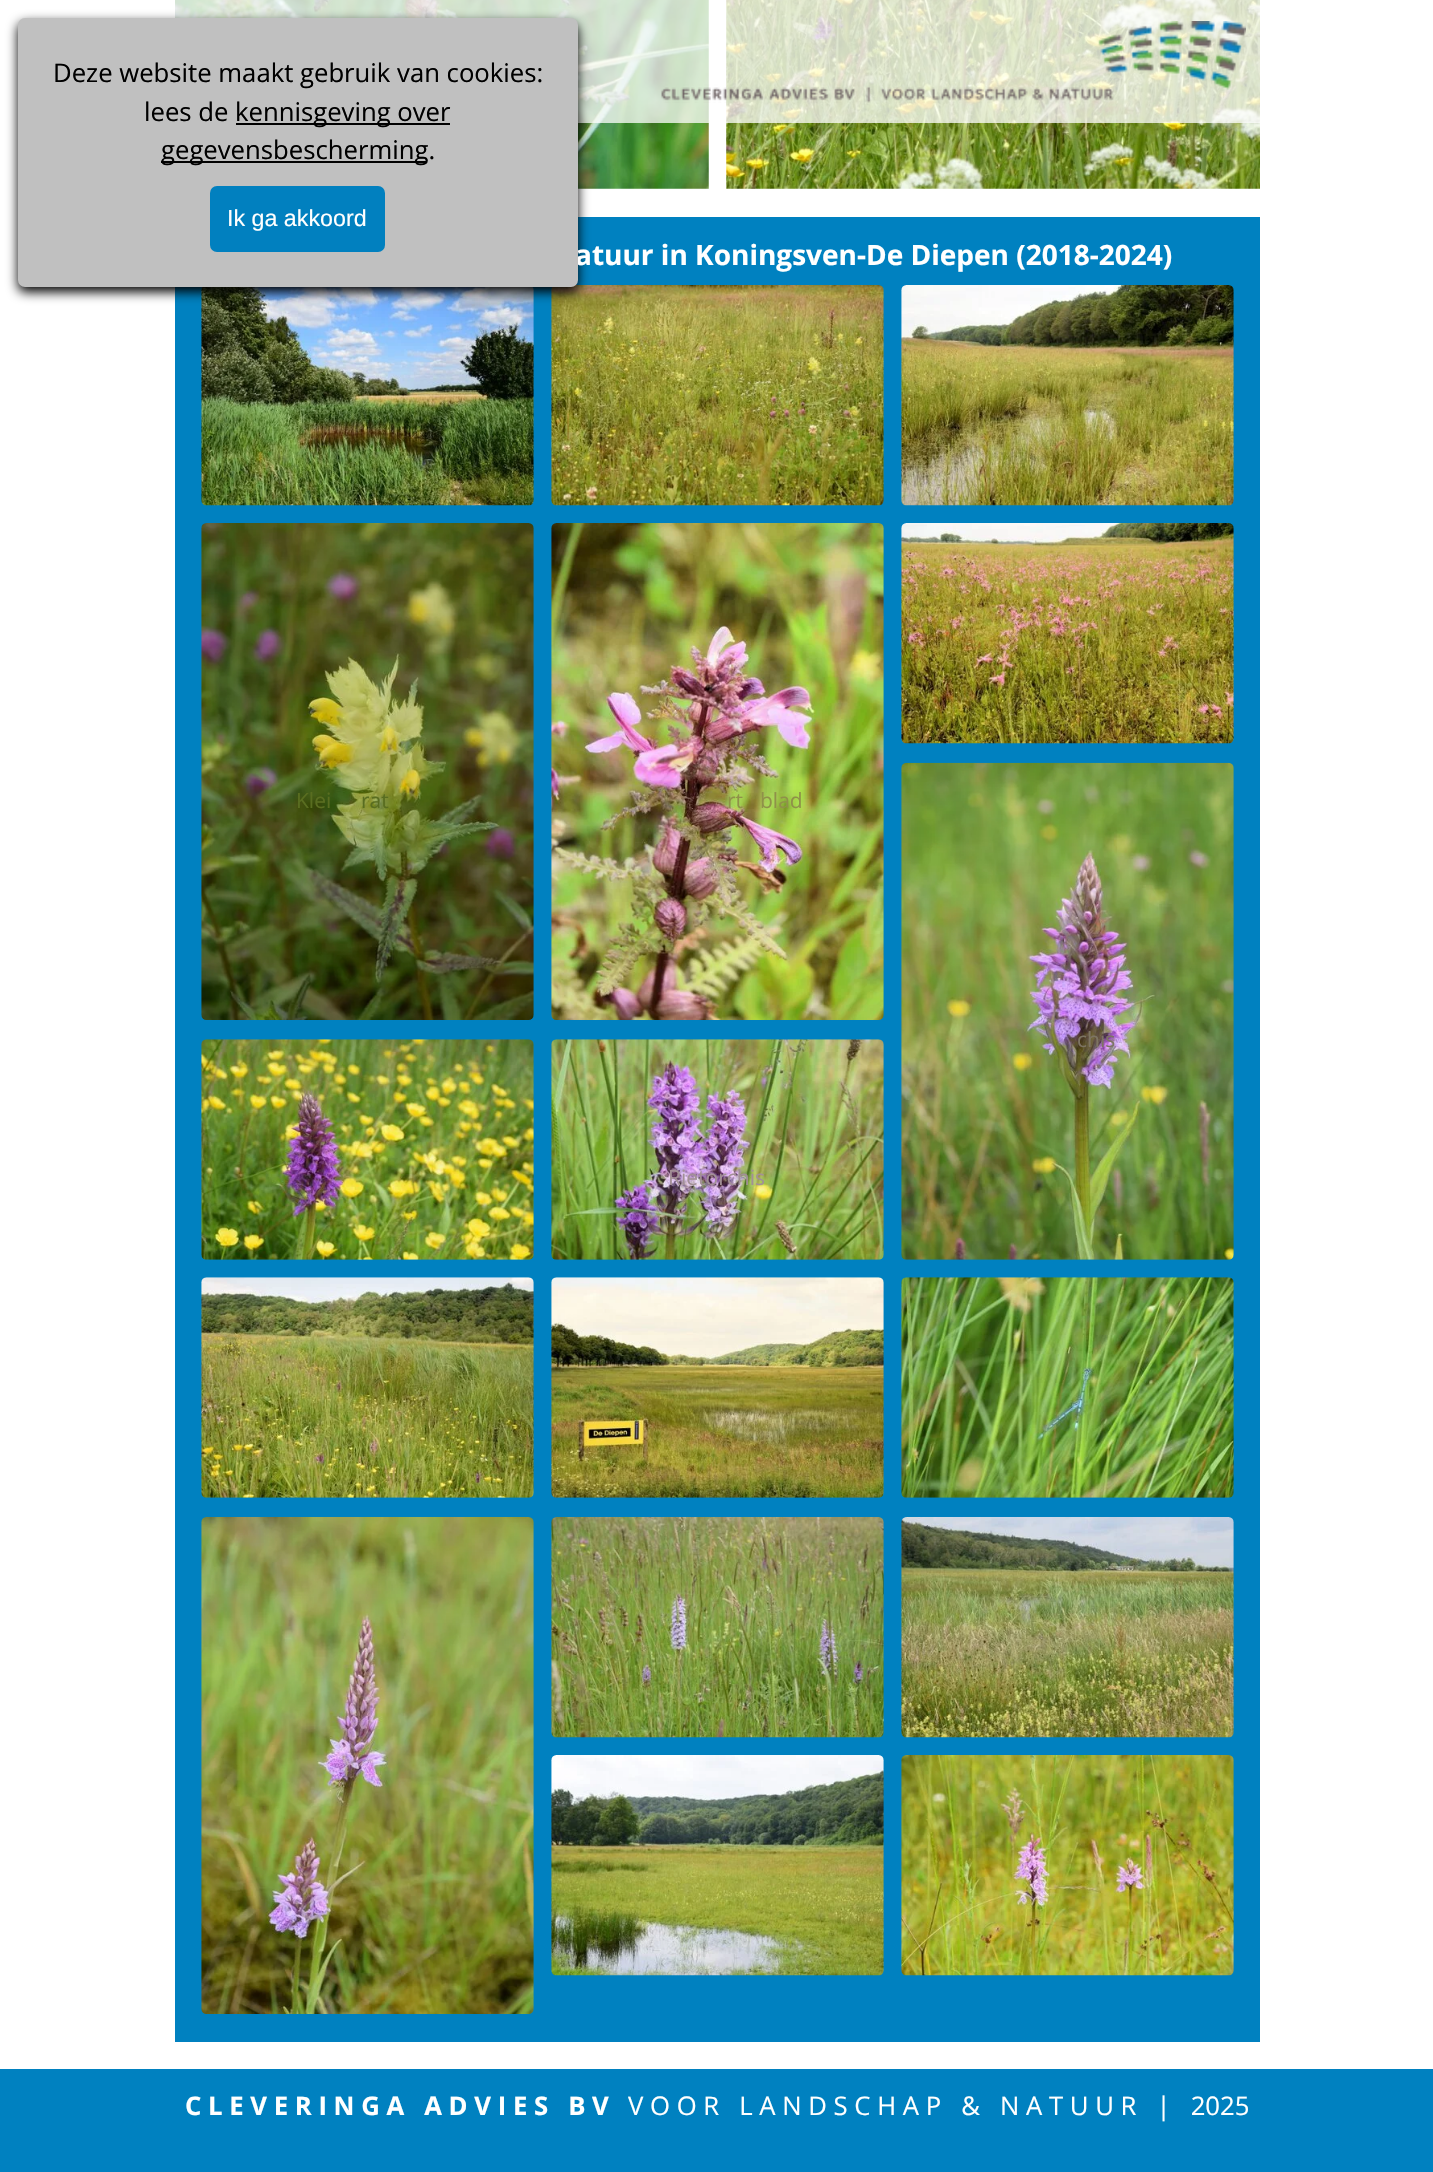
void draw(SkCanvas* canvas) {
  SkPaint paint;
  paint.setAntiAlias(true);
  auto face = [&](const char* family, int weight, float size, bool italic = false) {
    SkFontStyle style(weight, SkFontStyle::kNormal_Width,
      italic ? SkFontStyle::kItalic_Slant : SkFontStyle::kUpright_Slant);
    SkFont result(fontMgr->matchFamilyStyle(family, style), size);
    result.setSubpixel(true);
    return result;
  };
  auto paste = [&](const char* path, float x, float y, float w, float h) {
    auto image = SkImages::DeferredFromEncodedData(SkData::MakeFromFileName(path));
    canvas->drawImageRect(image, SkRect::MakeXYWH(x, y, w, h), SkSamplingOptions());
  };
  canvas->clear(0xffffffff);
  paste("img/2.png", 175, 0, 534, 189);
  paste("img/3.png", 726, 0, 534, 189);
  {
    const struct { float x, y, w, h; SkColor color; } items[] = {
      {175, 0, 1085, 123, 0xbfffffff},
      {578, 217, 682, 60, 0xff0081c0},
      {175, 277, 1085, 1765, 0xff0081c0},
    };
    for (auto [x, y, w, h, color] : items) {
      paint.setColor(color);
      canvas->drawRect(SkRect::MakeXYWH(x, y, w, h), paint);
    }
  }
  paste("img/4.png", 201, 287, 333, 219);
  paste("img/5.png", 551, 285, 333, 221);
  paint.setColor(0xff000000);
  paint.setMaskFilter(SkMaskFilter::MakeBlur(kNormal_SkBlurStyle, 6));
  canvas->drawRoundRect(SkRect::MakeXYWH(18, 23, 560, 269), 7, 7, paint);
  paint.setMaskFilter(nullptr);
  paste("img/1.png", 661, 21, 585, 82);
  paste("img/6.png", 901, 285, 333, 221);
  paste("img/7.png", 901, 523, 333, 221);
  paste("img/8.png", 201, 523, 333, 497);
  paste("img/9.png", 551, 523, 333, 497);
  paste("img/10.png", 201, 1039, 333, 221);
  paste("img/11.png", 551, 1039, 333, 221);
  paste("img/12.png", 901, 762, 333, 498);
  paste("img/13.png", 201, 1277, 333, 221);
  paste("img/14.png", 551, 1277, 333, 221);
  paste("img/15.png", 901, 1277, 333, 221);
  paste("img/16.png", 201, 1517, 333, 497);
  paste("img/17.png", 551, 1517, 333, 221);
  paste("img/18.png", 901, 1517, 333, 221);
  paste("img/19.png", 551, 1755, 333, 221);
  paste("img/20.png", 901, 1755, 333, 221);
  paint.setColor(0xff0081c0);
  canvas->drawRect(SkRect::MakeXYWH(0, 2069, 1433, 103), paint);
  auto f0 = face("Open Sans", 700, 28);
  paint.setColor(0xffffffff);
  canvas->drawString("atuur in Koningsven-De Diepen (2018-2024)", 575, 265, f0, paint);
  paint.setColor(0xffc0c0c0);
  canvas->drawRoundRect(SkRect::MakeXYWH(18, 18, 560, 269), 7, 7, paint);
  paint.setColor(0xff0180bf);
  canvas->drawRoundRect(SkRect::MakeXYWH(210, 186, 175, 66), 7, 7, paint);
  auto f1 = face("Liberation Sans", 400, 23.25f);
  paint.setColor(0xffffffff);
  canvas->drawString("Ik ga akkoord", 227, 226, f1, paint);
  paint.setColor(0xff000000);
  canvas->drawRect(SkRect::MakeXYWH(161, 161, 266, 2), paint);
  auto f2 = face("Open Sans", 400, 25.7f);
  canvas->drawString("gegevensbescherming.", 161, 159, f2, paint);
  canvas->drawRect(SkRect::MakeXYWH(236, 123, 214, 2), paint);
  {
    const struct { const char* s; float x, y; } items[] = {
      {"kennisgeving over", 235, 121},
      {"lees de", 144, 121},
      {"Deze website maakt gebruik van cookies:", 53, 82},
    };
    for (auto [s, x, y] : items) {
      canvas->drawString(s, x, y, f2, paint);
    }
  }
  auto f3 = face("Open Sans", 400, 21);
  paint.setColor(0xff596d20);
  canvas->drawString("Klei", 296, 808, f3, paint);
  canvas->drawString("rat", 361, 808, f3, paint);
  paint.setColor(0xff8f9149);
  canvas->drawString("rt", 727, 808, f3, paint);
  canvas->drawString("blad", 760, 808, f3, paint);
  paint.setColor(0xffa29096);
  canvas->drawString("Rietorchis", 668, 1185, f3, paint);
  paint.setColor(0xff7d7463);
  canvas->drawString("chis", 1077, 1047, f3, paint);
  auto f4 = face("Open Sans", 700, 25.7f);
  paint.setColor(0xffffffff);
  canvas->drawString("C L E V E R I N G A   A D V I E S   B V", 185, 2115, f4, paint);
  canvas->drawString("V O O R   L A N D S C H A P   &   N A T U U R   |   2025", 628, 2115, f2, paint);
}
